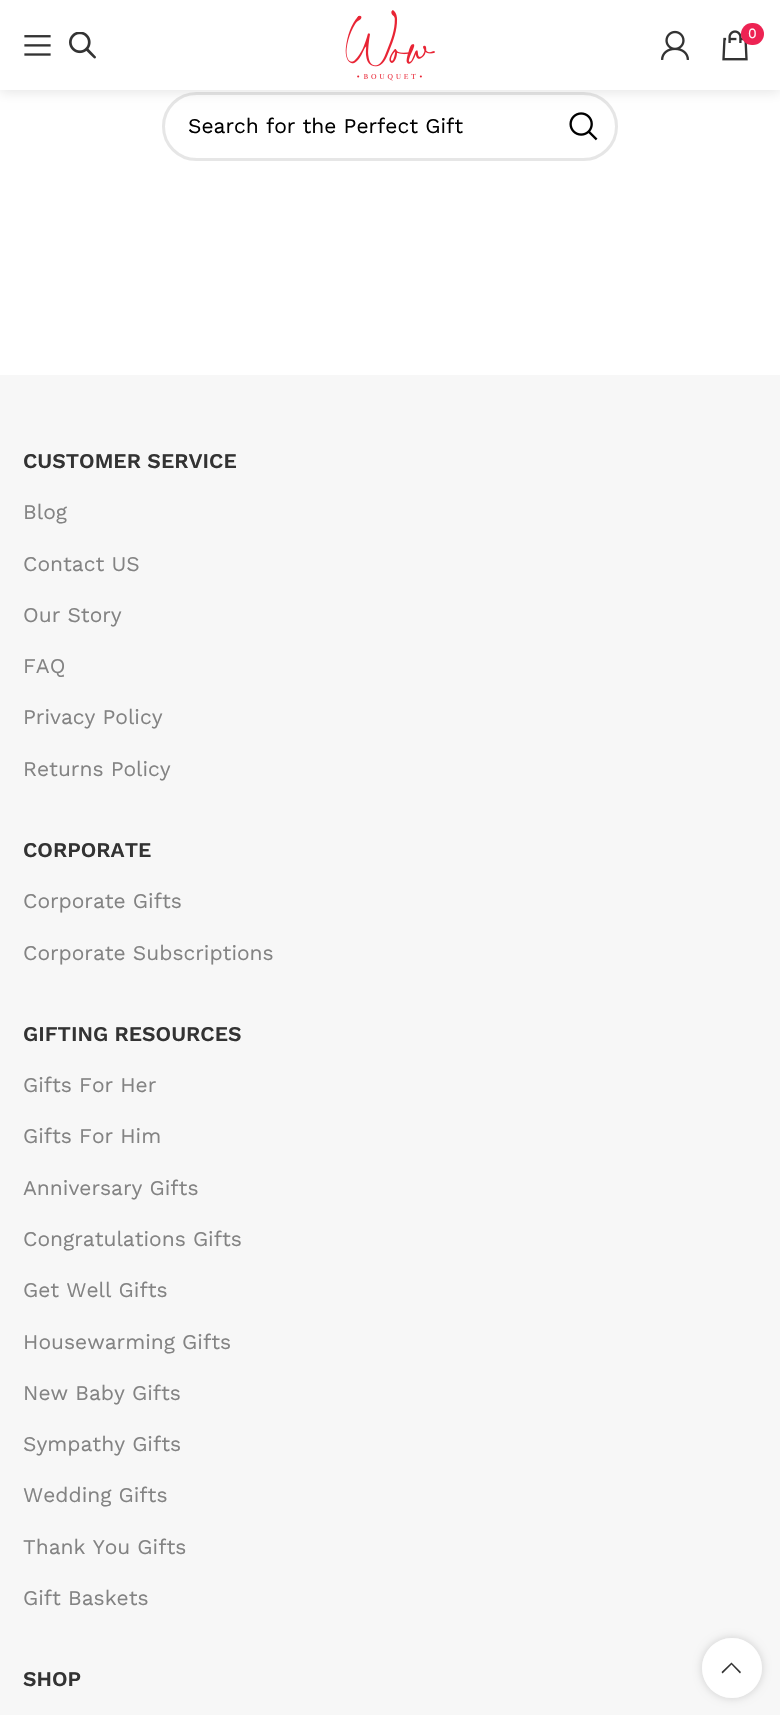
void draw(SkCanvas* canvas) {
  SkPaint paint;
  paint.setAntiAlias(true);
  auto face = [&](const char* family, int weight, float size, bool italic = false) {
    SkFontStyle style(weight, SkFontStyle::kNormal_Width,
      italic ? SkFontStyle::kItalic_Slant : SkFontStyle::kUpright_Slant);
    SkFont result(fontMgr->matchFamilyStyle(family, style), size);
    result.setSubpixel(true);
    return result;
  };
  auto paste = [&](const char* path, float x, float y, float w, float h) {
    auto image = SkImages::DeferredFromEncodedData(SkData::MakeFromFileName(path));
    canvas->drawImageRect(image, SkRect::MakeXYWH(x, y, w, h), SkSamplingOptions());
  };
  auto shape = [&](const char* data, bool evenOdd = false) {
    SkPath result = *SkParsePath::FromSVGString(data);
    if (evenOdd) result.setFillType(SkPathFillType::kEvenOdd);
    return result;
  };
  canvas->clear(0xffffffff);
  paint.setStroke(true);
  paint.setStrokeWidth(3);
  paint.setColor(0xffe6e6e6);
  canvas->drawRoundRect(SkRect::MakeXYWH(163.5f, 93.5f, 453, 66), 33, 33, paint);
  paint.setStroke(false);
  paint.setColor(0x1a000000);
  paint.setMaskFilter(SkMaskFilter::MakeBlur(kNormal_SkBlurStyle, 6));
  canvas->drawRect(SkRect::MakeXYWH(0, 2, 780, 90), paint);
  paint.setMaskFilter(nullptr);
  paint.setColor(0xffffffff);
  canvas->drawRect(SkRect::MakeXYWH(0, 0, 780, 90), paint);
  paste("img/1.png", 24, 35, 27, 21);
  paste("img/2.png", 69, 32, 27, 27);
  paste("img/3.png", 345, 10, 90, 71);
  paste("img/4.png", 661, 30, 28, 30);
  paste("img/5.png", 722, 30, 26, 31);
  paint.setColor(0xffed2353);
  canvas->drawRoundRect(SkRect::MakeXYWH(741, 23, 23, 22), 11, 11, paint);
  paste("img/6.png", 569, 112, 29, 29);
  paint.setColor(0xfff7f7f7);
  canvas->drawRect(SkRect::MakeXYWH(0, 375, 780, 1340), paint);
  canvas->save();
  canvas->clipPath(shape("M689 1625H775V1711H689ZM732 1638C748.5 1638 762 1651.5 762 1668C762 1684.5 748.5 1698 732 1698C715.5 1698 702 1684.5 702 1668C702 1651.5 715.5 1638 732 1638Z", true), true);
  paint.setColor(0x2b000000);
  paint.setMaskFilter(SkMaskFilter::MakeBlur(kNormal_SkBlurStyle, 4));
  canvas->drawRoundRect(SkRect::MakeXYWH(702, 1638, 60, 60), 30, 30, paint);
  paint.setMaskFilter(nullptr);
  canvas->restore();
  paint.setColor(0xe6ffffff);
  canvas->drawCircle(732, 1668, 30, paint);
  paint.setColor(0xff333333);
  canvas->drawPath(shape("M740 1673.5L741 1672L731.5 1662.5L721.5 1672L722.5 1673.5L731.5 1664.5Z"), paint);
  auto f0 = face("Work Sans", 400, 14);
  paint.setColor(0xffffffff);
  canvas->drawString("0", 748, 38, f0, paint);
  auto f1 = face("Work Sans", 400, 21);
  paint.setColor(0xff000000);
  canvas->drawString("Search for the Perfect Gift", 188, 133, f1, paint);
  auto f2 = face("Work Sans", 600, 21);
  paint.setColor(0xff333333);
  canvas->drawString("CUSTOMER SERVICE", 23, 468, f2, paint);
  paint.setColor(0xff838383);
  {
    const struct { const char* s; float x, y; } items[] = {
      {"Blog", 23, 519},
      {"Contact US", 23, 571},
      {"Our Story", 23, 622},
      {"FAQ", 23, 673},
      {"Privacy Policy", 23, 724},
      {"Returns Policy", 23, 776},
    };
    for (auto [s, x, y] : items) {
      canvas->drawString(s, x, y, f1, paint);
    }
  }
  paint.setColor(0xff333333);
  canvas->drawString("CORPORATE", 23, 857, f2, paint);
  paint.setColor(0xff838383);
  canvas->drawString("Corporate Gifts", 23, 908, f1, paint);
  canvas->drawString("Corporate Subscriptions", 23, 960, f1, paint);
  paint.setColor(0xff333333);
  canvas->drawString("GIFTING RESOURCES", 23, 1041, f2, paint);
  paint.setColor(0xff838383);
  {
    const struct { const char* s; float x, y; } items[] = {
      {"Gifts For Her", 23, 1092},
      {"Gifts For Him", 23, 1143},
      {"Anniversary Gifts", 23, 1195},
      {"Congratulations Gifts", 23, 1246},
      {"Get Well Gifts", 23, 1297},
      {"Housewarming Gifts", 23, 1349},
      {"New Baby Gifts", 23, 1400},
      {"Sympathy Gifts", 23, 1451},
      {"Wedding Gifts", 23, 1502},
      {"Thank You Gifts", 23, 1554},
      {"Gift Baskets", 23, 1605},
    };
    for (auto [s, x, y] : items) {
      canvas->drawString(s, x, y, f1, paint);
    }
  }
  paint.setColor(0xff333333);
  canvas->drawString("SHOP", 23, 1686, f2, paint);
}
